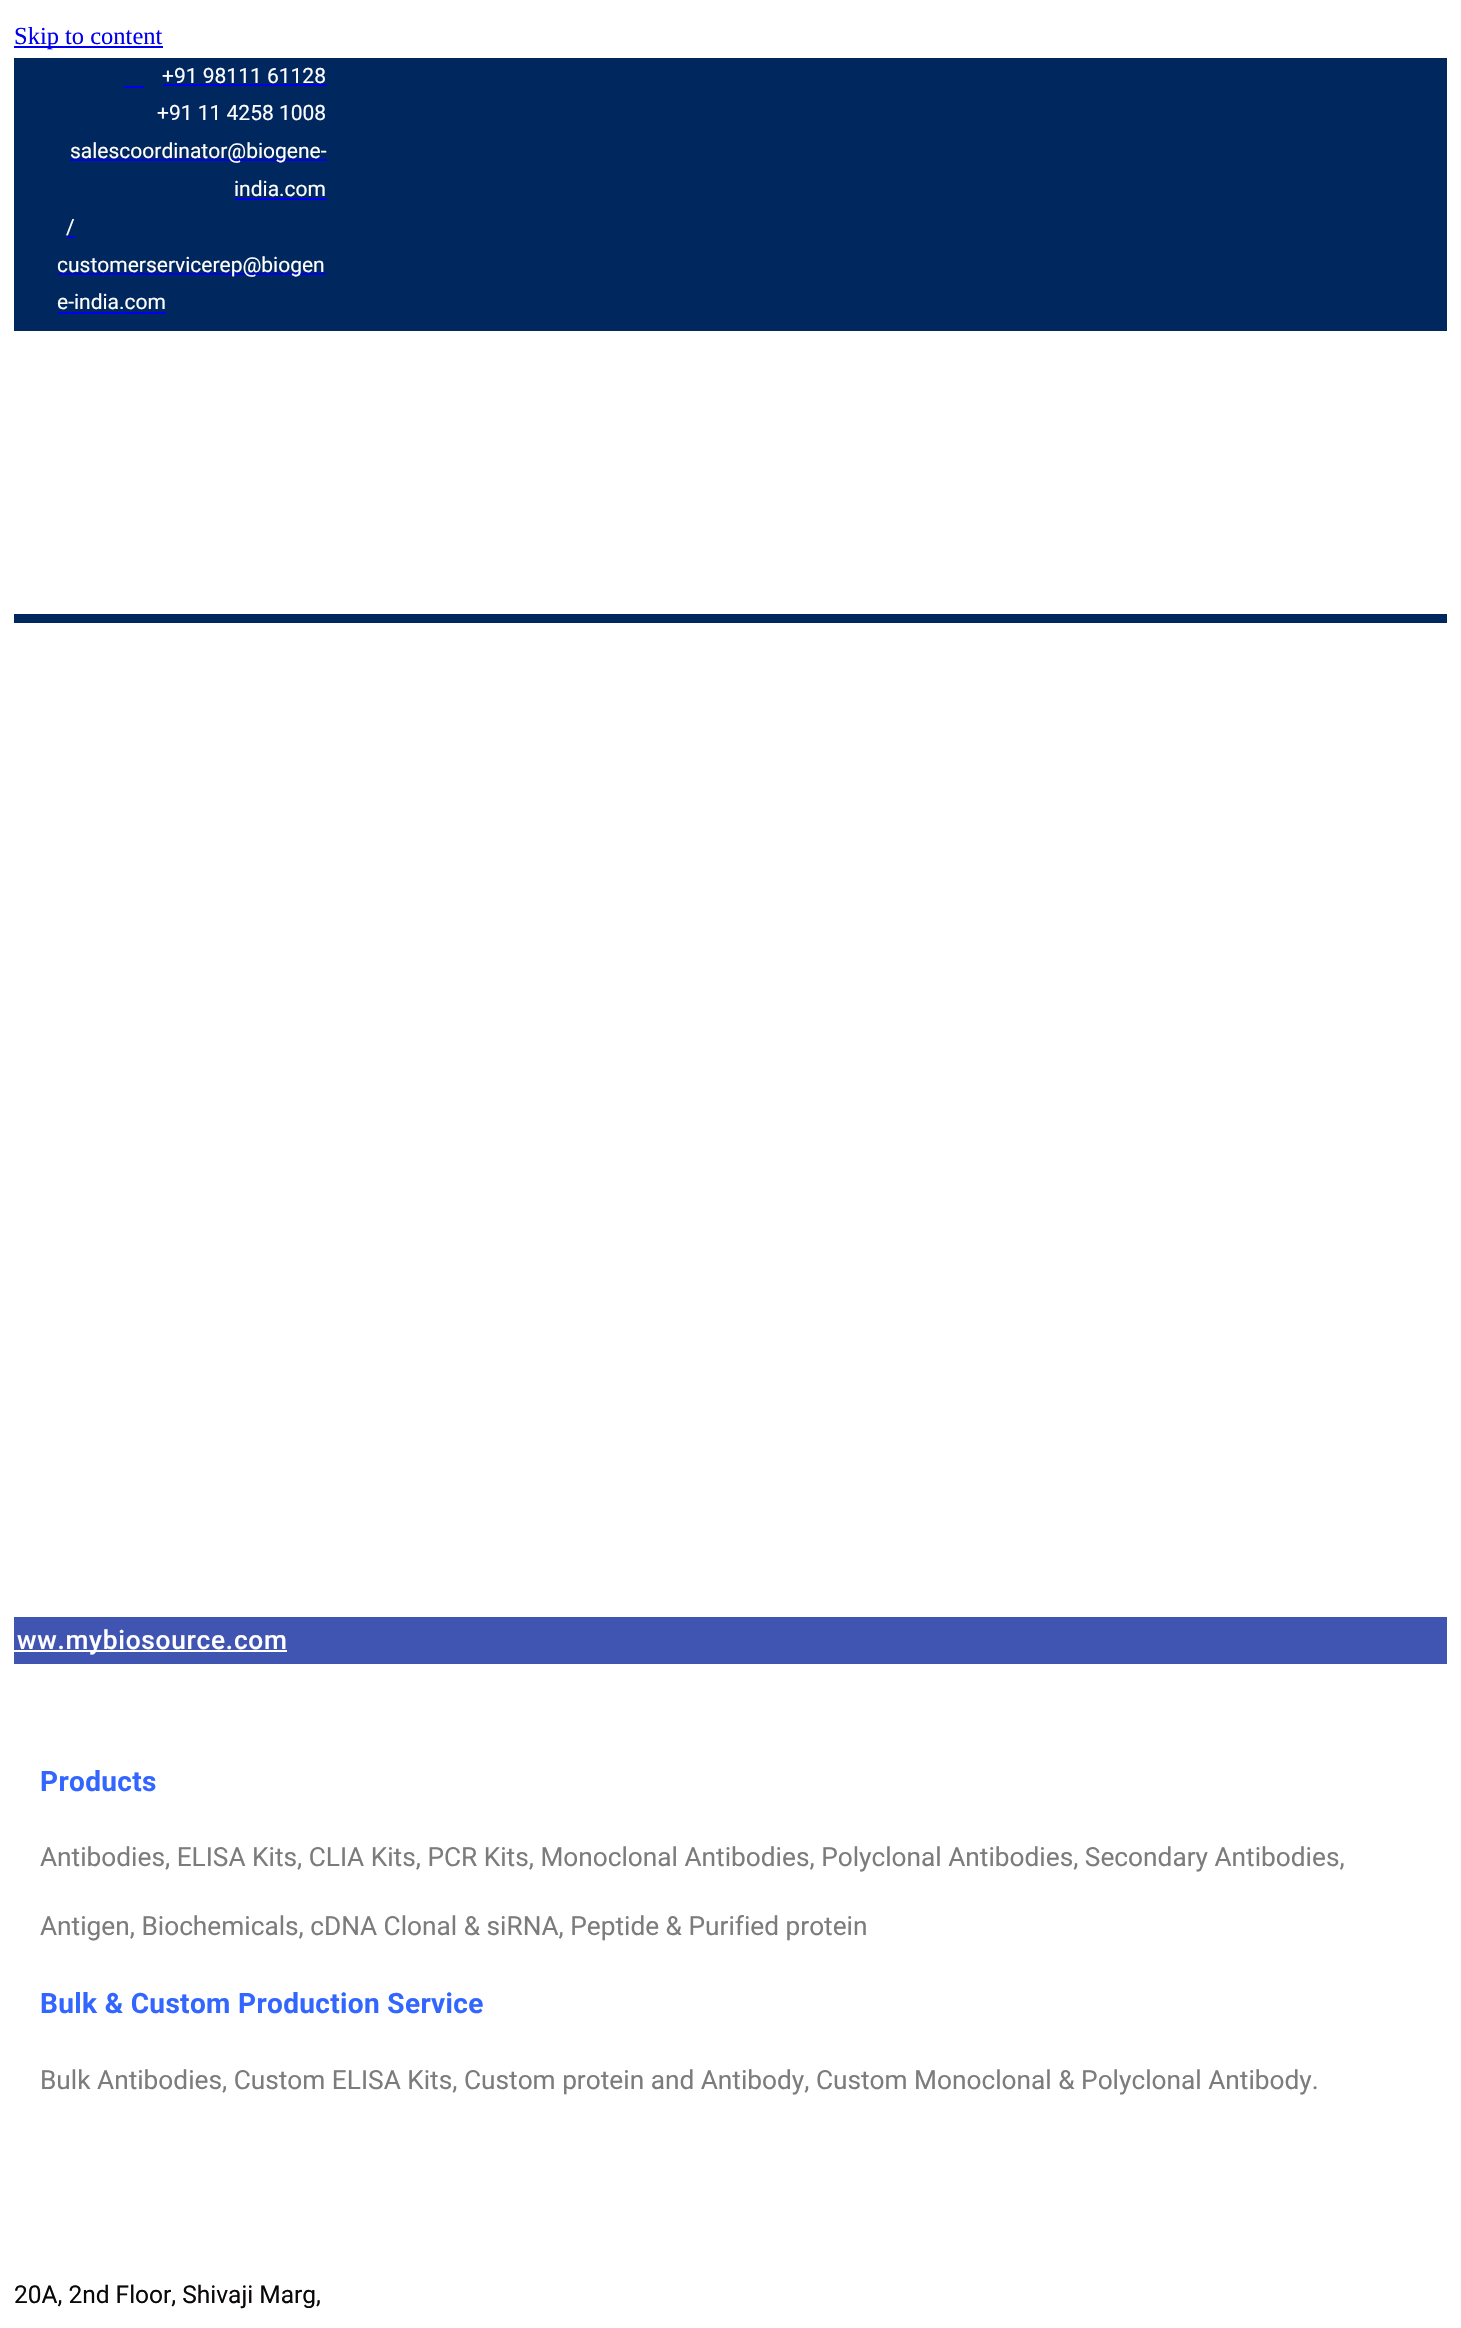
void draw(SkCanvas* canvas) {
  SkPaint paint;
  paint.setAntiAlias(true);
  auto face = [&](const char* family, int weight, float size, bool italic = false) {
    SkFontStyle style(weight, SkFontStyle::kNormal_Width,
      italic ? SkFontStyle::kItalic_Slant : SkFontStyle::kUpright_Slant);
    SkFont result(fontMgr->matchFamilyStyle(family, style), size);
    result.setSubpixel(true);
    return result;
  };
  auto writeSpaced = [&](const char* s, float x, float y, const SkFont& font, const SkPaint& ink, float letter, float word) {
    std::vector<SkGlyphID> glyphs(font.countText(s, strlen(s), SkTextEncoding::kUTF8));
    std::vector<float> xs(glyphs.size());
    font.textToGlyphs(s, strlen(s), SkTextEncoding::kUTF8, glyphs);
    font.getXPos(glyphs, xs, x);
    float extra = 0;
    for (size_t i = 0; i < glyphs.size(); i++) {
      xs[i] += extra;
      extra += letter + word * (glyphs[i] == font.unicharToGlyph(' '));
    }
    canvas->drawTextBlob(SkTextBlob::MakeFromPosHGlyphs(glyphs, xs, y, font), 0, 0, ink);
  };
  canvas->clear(0xffffffff);
  {
    const struct { float x, y, w, h; SkColor color; } items[] = {
      {14, 46, 149, 2, 0xff0000ee},
      {14, 58, 1433, 273, 0xff00275e},
      {163, 84, 164, 2, 0xff0000ee},
      {124, 86, 20, 2, 0xff0000ee},
      {70, 159, 257, 2, 0xff0000ee},
      {235, 198, 92, 2, 0xff0000ee},
      {67, 236, 8, 2, 0xff0000ee},
      {58, 273, 268, 2, 0xff0000ee},
      {58, 312, 108, 2, 0xff0000ee},
      {14, 614, 1433, 9, 0xff00275e},
      {14, 1617, 1433, 47, 0xff4054b2},
      {14, 1650, 273, 2, 0xffffffff},
    };
    for (auto [x, y, w, h, color] : items) {
      paint.setColor(color);
      canvas->drawRect(SkRect::MakeXYWH(x, y, w, h), paint);
    }
  }
  auto f0 = face("Liberation Serif", 400, 24.5f);
  paint.setColor(0xff0000ee);
  canvas->drawString("Skip to content", 14, 44, f0, paint);
  auto f1 = face("Roboto", 400, 21);
  paint.setColor(0xffffffff);
  {
    const struct { const char* s; float x, y; } items[] = {
      {"+91 98111 61128", 162, 83},
      {"+91 11 4258 1008", 157, 120},
      {"salescoordinator@biogene-", 70, 158},
      {"india.com", 234, 196},
      {"/", 66, 234},
      {"customerservicerep@biogen", 57, 272},
      {"e-india.com", 57, 309},
    };
    for (auto [s, x, y] : items) {
      canvas->drawString(s, x, y, f1, paint);
    }
  }
  auto f2 = face("Roboto", 500, 26.25f);
  writeSpaced("ww.mybiosource.com", 17, 1649, f2, paint, 0.75f, 0);
  auto f3 = face("Roboto", 700, 28);
  paint.setColor(0xff3366ff);
  writeSpaced("Products", 40, 1791, f3, paint, 0.35f, 0);
  auto f4 = face("Roboto", 400, 26.25f);
  paint.setColor(0xff7c7c7c);
  canvas->drawString("Antibodies, ELISA Kits, CLIA Kits, PCR Kits, Monoclonal Antibodies, Polyclonal Antibodies, Secondary Antibodies,", 40, 1866, f4, paint);
  canvas->drawString("Antigen, Biochemicals, cDNA Clonal & siRNA, Peptide & Purified protein", 40, 1935, f4, paint);
  paint.setColor(0xff3366ff);
  writeSpaced("Bulk & Custom Production Service", 40, 2013, f3, paint, 0.35f, 0);
  paint.setColor(0xff7c7c7c);
  canvas->drawString("Bulk Antibodies, Custom ELISA Kits, Custom protein and Antibody, Custom Monoclonal & Polyclonal Antibody.", 40, 2089, f4, paint);
  auto f5 = face("Roboto", 400, 24.5f);
  paint.setColor(0xff0a0808);
  canvas->drawString("20A, 2nd Floor, Shivaji Marg,", 14, 2303, f5, paint);
}
